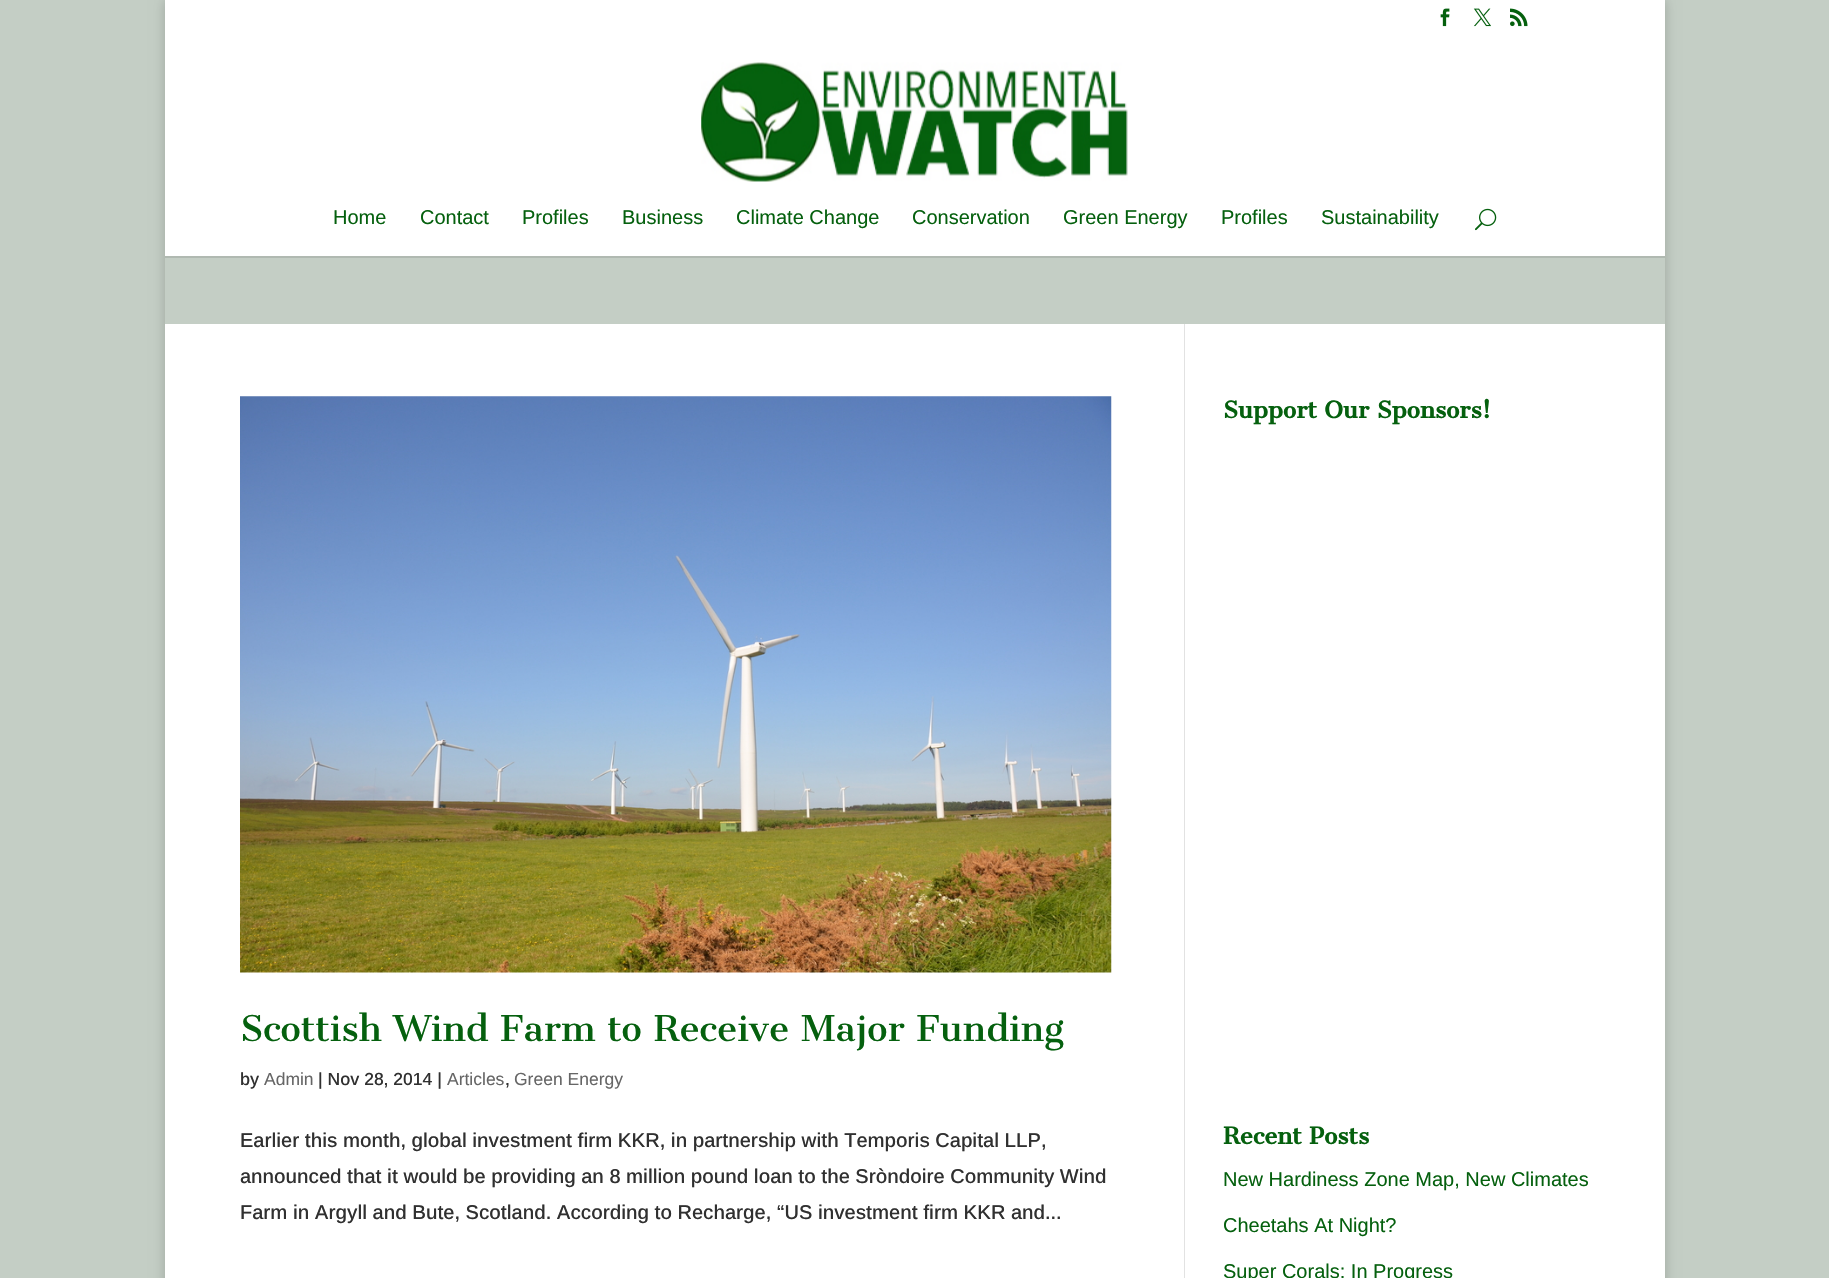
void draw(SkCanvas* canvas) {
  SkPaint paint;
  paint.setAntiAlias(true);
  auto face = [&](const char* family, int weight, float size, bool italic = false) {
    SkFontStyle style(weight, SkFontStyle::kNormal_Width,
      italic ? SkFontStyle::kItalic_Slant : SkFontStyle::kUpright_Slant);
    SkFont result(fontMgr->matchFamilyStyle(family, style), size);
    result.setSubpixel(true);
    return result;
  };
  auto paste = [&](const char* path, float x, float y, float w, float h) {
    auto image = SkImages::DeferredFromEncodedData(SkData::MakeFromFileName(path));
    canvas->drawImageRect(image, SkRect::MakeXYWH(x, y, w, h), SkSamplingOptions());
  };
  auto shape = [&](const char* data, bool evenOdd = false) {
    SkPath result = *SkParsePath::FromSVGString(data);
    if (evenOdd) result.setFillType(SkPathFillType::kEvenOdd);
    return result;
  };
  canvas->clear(0xffc4cec5);
  canvas->save();
  canvas->clipPath(shape("M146 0H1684V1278H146ZM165 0H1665V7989H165Z", true), true);
  paint.setColor(0x33000000);
  paint.setMaskFilter(SkMaskFilter::MakeBlur(kNormal_SkBlurStyle, 6));
  canvas->drawRect(SkRect::MakeXYWH(165, 0, 1500, 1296), paint);
  paint.setMaskFilter(nullptr);
  canvas->restore();
  paint.setColor(0xffffffff);
  canvas->drawRect(SkRect::MakeXYWH(165, 0, 1500, 256), paint);
  paste("img/1.png", 1440, 8, 10, 19);
  paste("img/2.png", 1473, 8, 18, 19);
  paste("img/3.png", 1510, 8, 18, 19);
  paint.setColor(0xffb0b9b1);
  canvas->drawRect(SkRect::MakeXYWH(165, 256, 1500, 2), paint);
  paste("img/4.png", 701, 62, 427, 120);
  paste("img/5.png", 1475, 208, 22, 23);
  paint.setColor(0xffffffff);
  canvas->drawRect(SkRect::MakeXYWH(165, 324, 1500, 954), paint);
  paint.setColor(0xffe2e2e2);
  canvas->drawRect(SkRect::MakeXYWH(1184, 324, 1, 954), paint);
  paste("img/6.png", 240, 396, 872, 577);
  auto f0 = face("Arimo", 400, 20);
  paint.setColor(0xff05600e);
  {
    const struct { const char* s; float x, y; } items[] = {
      {"Home", 333, 224},
      {"Contact", 420, 224},
      {"Profiles", 522, 224},
      {"Business", 622, 224},
      {"Climate Change", 736, 224},
      {"Conservation", 912, 224},
      {"Green Energy", 1063, 224},
      {"Profiles", 1221, 224},
      {"Sustainability", 1321, 224},
    };
    for (auto [s, x, y] : items) {
      canvas->drawString(s, x, y, f0, paint);
    }
  }
  auto f1 = face("Cantata One", 400, 34.7f);
  canvas->drawString("Scottish Wind Farm to Receive Major Funding", 240, 1041, f1, paint);
  auto f2 = face("Arimo", 500, 17.5f);
  paint.setColor(0xff303030);
  canvas->drawString("by", 240, 1085, f2, paint);
  auto f3 = face("Arimo", 400, 17.5f);
  paint.setColor(0xff666666);
  canvas->drawString("Admin", 264, 1085, f3, paint);
  paint.setColor(0xff303030);
  canvas->drawString("| Nov 28, 2014 |", 318, 1085, f2, paint);
  paint.setColor(0xff666666);
  canvas->drawString("Articles", 447, 1085, f3, paint);
  paint.setColor(0xff303030);
  canvas->drawString(",", 505, 1085, f2, paint);
  paint.setColor(0xff666666);
  canvas->drawString("Green Energy", 514, 1085, f3, paint);
  auto f4 = face("Arimo", 500, 20);
  paint.setColor(0xff303030);
  {
    const struct { const char* s; float x, y; } items[] = {
      {"Earlier this month, global investment firm KKR, in partnership with Temporis Capital LLP,", 240, 1147},
      {"announced that it would be providing an 8 million pound loan to the Sròndoire Community Wind", 240, 1183},
      {"Farm in Argyll and Bute, Scotland. According to Recharge, “US investment firm KKR and...", 240, 1219},
    };
    for (auto [s, x, y] : items) {
      canvas->drawString(s, x, y, f4, paint);
    }
  }
  auto f5 = face("Cantata One", 700, 22.5f);
  paint.setColor(0xff05600e);
  canvas->drawString("Support Our Sponsors!", 1223, 418, f5, paint);
  canvas->drawString("Recent Posts", 1223, 1144, f5, paint);
  {
    const struct { const char* s; float x, y; } items[] = {
      {"New Hardiness Zone Map, New Climates", 1223, 1186},
      {"Cheetahs At Night?", 1223, 1232},
      {"Super Corals: In Progress", 1223, 1278},
    };
    for (auto [s, x, y] : items) {
      canvas->drawString(s, x, y, f0, paint);
    }
  }
}
